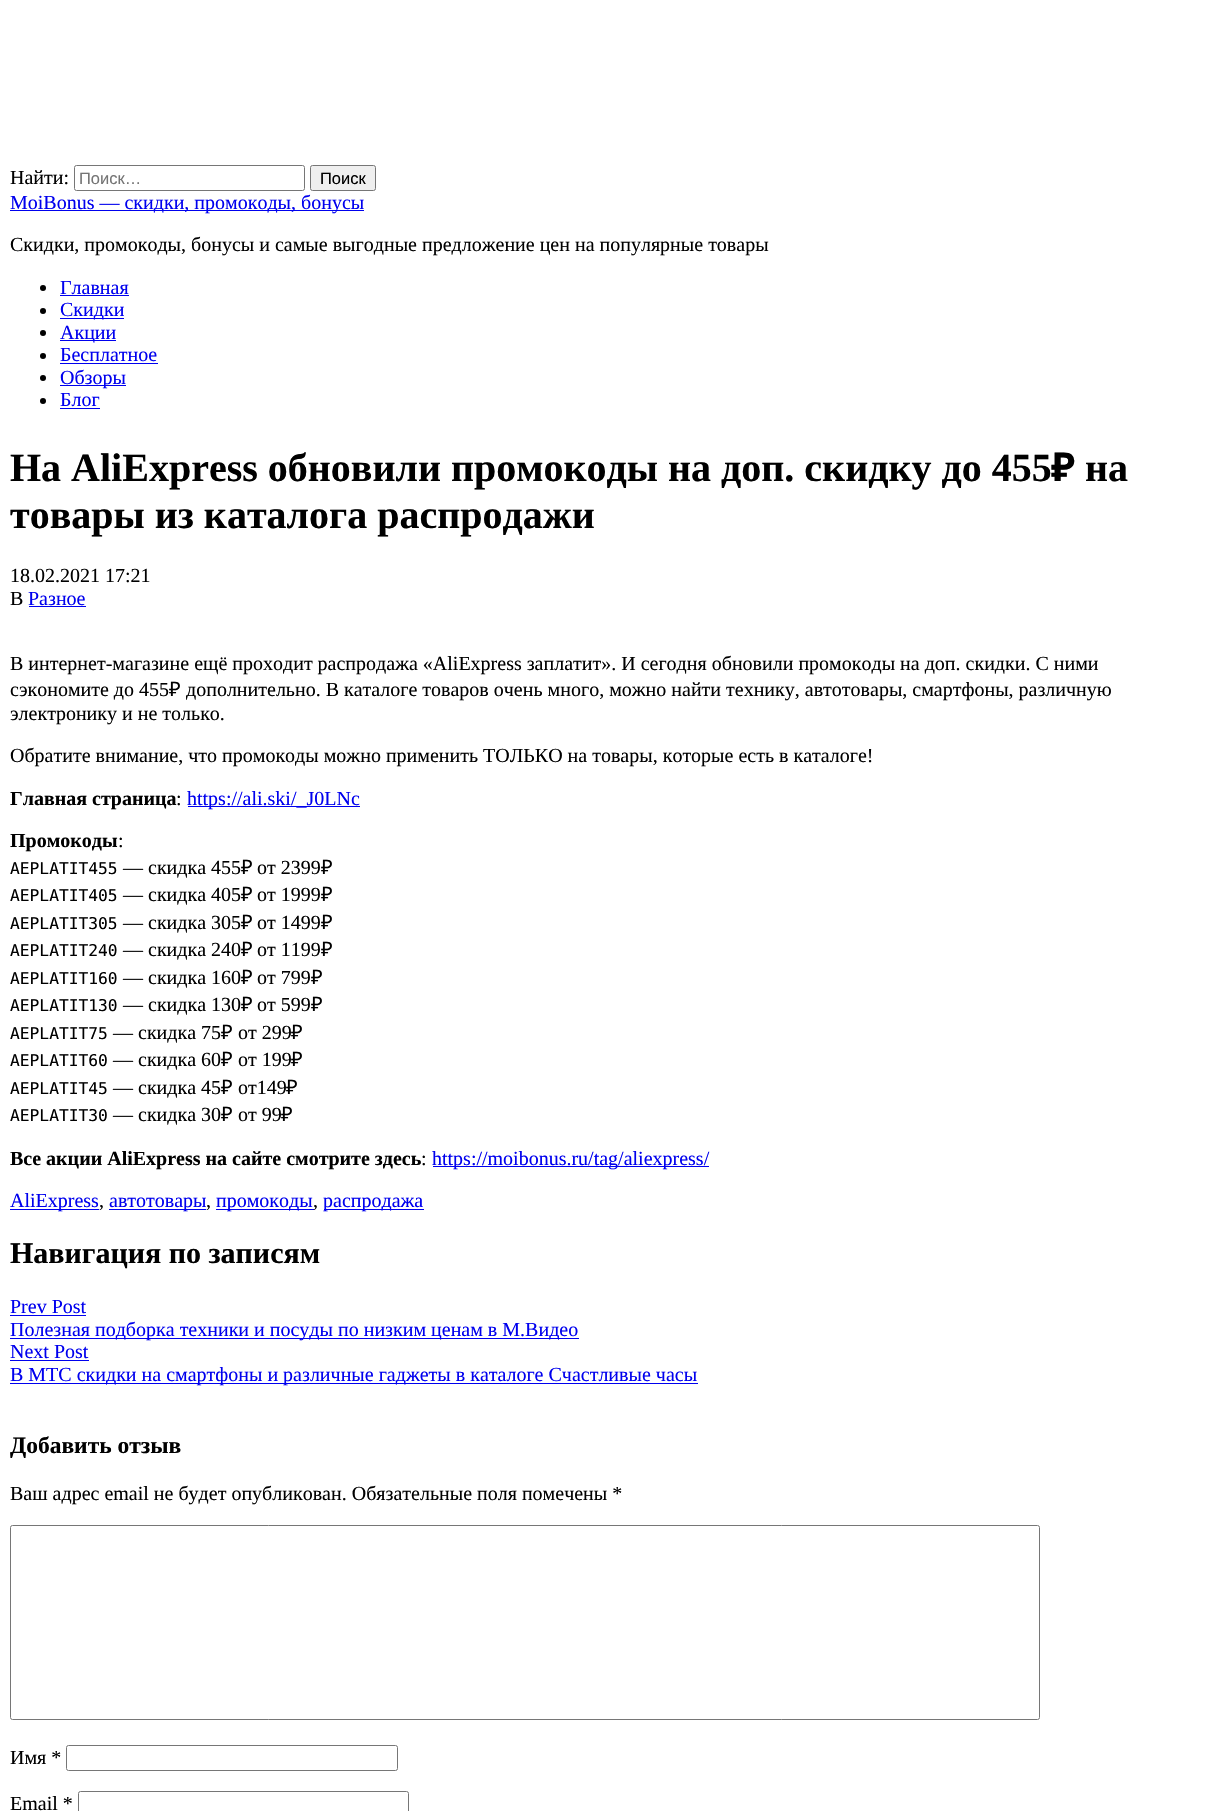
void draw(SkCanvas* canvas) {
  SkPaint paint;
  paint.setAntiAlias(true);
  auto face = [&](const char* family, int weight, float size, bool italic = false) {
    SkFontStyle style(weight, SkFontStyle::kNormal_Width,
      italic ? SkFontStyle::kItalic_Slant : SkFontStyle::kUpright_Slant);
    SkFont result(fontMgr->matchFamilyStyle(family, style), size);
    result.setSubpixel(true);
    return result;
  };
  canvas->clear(0xffffffff);
  paint.setStroke(true);
  paint.setStrokeWidth(1);
  paint.setColor(0xff767676);
  canvas->drawRoundRect(SkRect::MakeXYWH(74.5f, 165.5f, 230, 25), 2, 2, paint);
  paint.setStroke(false);
  paint.setColor(0xffefefef);
  canvas->drawRoundRect(SkRect::MakeXYWH(310.5f, 165.5f, 65, 25), 2, 2, paint);
  paint.setStroke(true);
  paint.setColor(0xff767676);
  canvas->drawRoundRect(SkRect::MakeXYWH(310.5f, 165.5f, 65, 25), 2, 2, paint);
  paint.setStroke(false);
  paint.setColor(0xff0000ee);
  canvas->drawRect(SkRect::MakeXYWH(10, 210, 354, 1), paint);
  paint.setColor(0xff000000);
  canvas->drawCircle(43, 288, 3, paint);
  paint.setColor(0xff0000ee);
  canvas->drawRect(SkRect::MakeXYWH(60, 295, 69, 1), paint);
  paint.setColor(0xff000000);
  canvas->drawCircle(43, 311, 3, paint);
  paint.setColor(0xff0000ee);
  canvas->drawRect(SkRect::MakeXYWH(60, 318, 64, 1), paint);
  paint.setColor(0xff000000);
  canvas->drawCircle(43, 333, 3, paint);
  paint.setColor(0xff0000ee);
  canvas->drawRect(SkRect::MakeXYWH(60, 340, 56, 1), paint);
  paint.setColor(0xff000000);
  canvas->drawCircle(43, 356, 3, paint);
  paint.setColor(0xff0000ee);
  canvas->drawRect(SkRect::MakeXYWH(60, 363, 98, 1), paint);
  paint.setColor(0xff000000);
  canvas->drawCircle(43, 378, 3, paint);
  paint.setColor(0xff0000ee);
  canvas->drawRect(SkRect::MakeXYWH(60, 385, 66, 1), paint);
  paint.setColor(0xff000000);
  canvas->drawCircle(43, 401, 3, paint);
  {
    const struct { float x, y, w, h; SkColor color; } items[] = {
      {60, 408, 40, 1, 0xff0000ee},
      {29, 606, 57, 1, 0xff0000ee},
      {188, 806, 172, 1, 0xff0000ee},
      {433, 1166, 276, 1, 0xff0000ee},
      {10, 1209, 89, 1, 0xff0000ee},
      {109, 1209, 97, 1, 0xff0000ee},
      {216, 1209, 98, 1, 0xff0000ee},
      {324, 1209, 100, 1, 0xff0000ee},
      {10, 1315, 76, 1, 0xff0000ee},
      {10, 1338, 569, 1, 0xff0000ee},
      {10, 1360, 79, 1, 0xff0000ee},
      {10, 1383, 688, 1, 0xff0000ee},
    };
    for (auto [x, y, w, h, color] : items) {
      paint.setColor(color);
      canvas->drawRect(SkRect::MakeXYWH(x, y, w, h), paint);
    }
  }
  paint.setStroke(true);
  paint.setColor(0xff767676);
  canvas->drawRoundRect(SkRect::MakeXYWH(10.5f, 1525.5f, 1029, 194), 2, 2, paint);
  canvas->drawRoundRect(SkRect::MakeXYWH(66.5f, 1745.5f, 331, 25), 2, 2, paint);
  canvas->drawRoundRect(SkRect::MakeXYWH(78.5f, 1791.5f, 330, 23), 2, 2, paint);
  auto f0 = face("Liberation Serif", 400, 20);
  paint.setStroke(false);
  paint.setColor(0xff000000);
  canvas->drawString("Найти:", 10, 184, f0, paint);
  auto f1 = face("Liberation Sans", 400, 16.5f);
  paint.setColor(0xff757575);
  canvas->drawString("Поиск…", 79, 184, f1, paint);
  paint.setColor(0xff000000);
  canvas->drawString("Поиск", 320, 184, f1, paint);
  paint.setColor(0xff0000ee);
  canvas->drawString("MoiBonus — скидки, промокоды, бонусы", 10, 209, f0, paint);
  paint.setColor(0xff000000);
  canvas->drawString("Скидки, промокоды, бонусы и самые выгодные предложение цен на популярные товары", 10, 251, f0, paint);
  paint.setColor(0xff0000ee);
  {
    const struct { const char* s; float x, y; } items[] = {
      {"Главная", 60, 294},
      {"Скидки", 60, 316},
      {"Акции", 60, 339},
      {"Бесплатное", 60, 361},
      {"Обзоры", 60, 384},
      {"Блог", 60, 406},
    };
    for (auto [s, x, y] : items) {
      canvas->drawString(s, x, y, f0, paint);
    }
  }
  auto f2 = face("Liberation Serif", 700, 40);
  paint.setColor(0xff000000);
  canvas->drawString("На AliExpress обновили промокоды на доп. скидку до 455", 10, 481, f2, paint);
  auto f3 = face("Noto Sans", 700, 40);
  canvas->drawString("₽", 1051, 481, f3, paint);
  canvas->drawString("на", 1085, 481, f2, paint);
  canvas->drawString("товары из каталога распродажи", 10, 528, f2, paint);
  canvas->drawString("18.02.2021 17:21", 10, 582, f0, paint);
  canvas->drawString("В", 10, 605, f0, paint);
  paint.setColor(0xff0000ee);
  canvas->drawString("Разное", 28, 605, f0, paint);
  paint.setColor(0xff000000);
  canvas->drawString("В интернет-магазине ещё проходит распродажа «AliExpress заплатит». И сегодня обновили промокоды на доп. скидки. С ними", 10, 670, f0, paint);
  canvas->drawString("сэкономите до 455", 10, 696, f0, paint);
  auto f4 = face("Noto Sans", 400, 20);
  canvas->drawString("₽", 169, 696, f4, paint);
  {
    const struct { const char* s; float x, y; } items[] = {
      {"дополнительно. В каталоге товаров очень много, можно найти технику, автотовары, смартфоны, различную", 186, 696},
      {"электронику и не только.", 10, 720},
      {"Обратите внимание, что промокоды можно применить ТОЛЬКО на товары, которые есть в каталоге!", 10, 762},
    };
    for (auto [s, x, y] : items) {
      canvas->drawString(s, x, y, f0, paint);
    }
  }
  auto f5 = face("Liberation Serif", 700, 20);
  canvas->drawString("Главная страница", 10, 805, f5, paint);
  canvas->drawString(":", 176, 805, f0, paint);
  paint.setColor(0xff0000ee);
  canvas->drawString("https://ali.ski/_J0LNc", 187, 805, f0, paint);
  paint.setColor(0xff000000);
  canvas->drawString("Промокоды", 10, 847, f5, paint);
  canvas->drawString(":", 118, 847, f0, paint);
  auto f6 = face("DejaVu Sans Mono", 400, 16.25f);
  canvas->drawString("AEPLATIT455", 10, 874, f6, paint);
  canvas->drawString("— скидка 455", 123, 874, f0, paint);
  canvas->drawString("₽", 241, 874, f4, paint);
  canvas->drawString("от 2399", 257, 874, f0, paint);
  canvas->drawString("₽", 321, 874, f4, paint);
  canvas->drawString("AEPLATIT405", 10, 901, f6, paint);
  canvas->drawString("— скидка 405", 123, 901, f0, paint);
  canvas->drawString("₽", 241, 901, f4, paint);
  canvas->drawString("от 1999", 257, 901, f0, paint);
  canvas->drawString("₽", 321, 901, f4, paint);
  canvas->drawString("AEPLATIT305", 10, 929, f6, paint);
  canvas->drawString("— скидка 305", 123, 929, f0, paint);
  canvas->drawString("₽", 241, 929, f4, paint);
  canvas->drawString("от 1499", 257, 929, f0, paint);
  canvas->drawString("₽", 321, 929, f4, paint);
  canvas->drawString("AEPLATIT240", 10, 956, f6, paint);
  canvas->drawString("— скидка 240", 123, 956, f0, paint);
  canvas->drawString("₽", 241, 956, f4, paint);
  canvas->drawString("от 1199", 257, 956, f0, paint);
  canvas->drawString("₽", 321, 956, f4, paint);
  canvas->drawString("AEPLATIT160", 10, 984, f6, paint);
  canvas->drawString("— скидка 160", 123, 984, f0, paint);
  canvas->drawString("₽", 241, 984, f4, paint);
  canvas->drawString("от 799", 257, 984, f0, paint);
  canvas->drawString("₽", 311, 984, f4, paint);
  canvas->drawString("AEPLATIT130", 10, 1011, f6, paint);
  canvas->drawString("— скидка 130", 123, 1011, f0, paint);
  canvas->drawString("₽", 241, 1011, f4, paint);
  canvas->drawString("от 599", 257, 1011, f0, paint);
  canvas->drawString("₽", 311, 1011, f4, paint);
  canvas->drawString("AEPLATIT75", 10, 1039, f6, paint);
  canvas->drawString("— скидка 75", 113, 1039, f0, paint);
  canvas->drawString("₽", 221, 1039, f4, paint);
  canvas->drawString("от 299", 238, 1039, f0, paint);
  canvas->drawString("₽", 291, 1039, f4, paint);
  canvas->drawString("AEPLATIT60", 10, 1066, f6, paint);
  canvas->drawString("— скидка 60", 113, 1066, f0, paint);
  canvas->drawString("₽", 221, 1066, f4, paint);
  canvas->drawString("от 199", 238, 1066, f0, paint);
  canvas->drawString("₽", 291, 1066, f4, paint);
  canvas->drawString("AEPLATIT45", 10, 1094, f6, paint);
  canvas->drawString("— скидка 45", 113, 1094, f0, paint);
  canvas->drawString("₽", 221, 1094, f4, paint);
  canvas->drawString("от149", 238, 1094, f0, paint);
  canvas->drawString("₽", 286, 1094, f4, paint);
  canvas->drawString("AEPLATIT30", 10, 1121, f6, paint);
  canvas->drawString("— скидка 30", 113, 1121, f0, paint);
  canvas->drawString("₽", 221, 1121, f4, paint);
  canvas->drawString("от 99", 238, 1121, f0, paint);
  canvas->drawString("₽", 281, 1121, f4, paint);
  canvas->drawString("Все акции AliExpress на сайте смотрите здесь", 10, 1165, f5, paint);
  canvas->drawString(":", 421, 1165, f0, paint);
  paint.setColor(0xff0000ee);
  canvas->drawString("https://moibonus.ru/tag/aliexpress/", 432, 1165, f0, paint);
  canvas->drawString("AliExpress", 10, 1207, f0, paint);
  paint.setColor(0xff000000);
  canvas->drawString(",", 99, 1207, f0, paint);
  paint.setColor(0xff0000ee);
  canvas->drawString("автотовары", 109, 1207, f0, paint);
  paint.setColor(0xff000000);
  canvas->drawString(",", 206, 1207, f0, paint);
  paint.setColor(0xff0000ee);
  canvas->drawString("промокоды", 216, 1207, f0, paint);
  paint.setColor(0xff000000);
  canvas->drawString(",", 313, 1207, f0, paint);
  paint.setColor(0xff0000ee);
  canvas->drawString("распродажа", 323, 1207, f0, paint);
  auto f7 = face("Liberation Serif", 700, 30);
  paint.setColor(0xff000000);
  canvas->drawString("Навигация по записям", 10, 1263, f7, paint);
  paint.setColor(0xff0000ee);
  {
    const struct { const char* s; float x, y; } items[] = {
      {"Prev Post", 10, 1313},
      {"Полезная подборка техники и посуды по низким ценам в М.Видео", 10, 1336},
      {"Next Post", 10, 1358},
      {"В МТС скидки на смартфоны и различные гаджеты в каталоге Счастливые часы", 10, 1381},
    };
    for (auto [s, x, y] : items) {
      canvas->drawString(s, x, y, f0, paint);
    }
  }
  auto f8 = face("Liberation Serif", 700, 23.5f);
  paint.setColor(0xff000000);
  canvas->drawString("Добавить отзыв", 10, 1453, f8, paint);
  {
    const struct { const char* s; float x, y; } items[] = {
      {"Ваш адрес email не будет опубликован. Обязательные поля помечены *", 10, 1500},
      {"Имя *", 10, 1764},
      {"Email *", 10, 1810},
    };
    for (auto [s, x, y] : items) {
      canvas->drawString(s, x, y, f0, paint);
    }
  }
}
